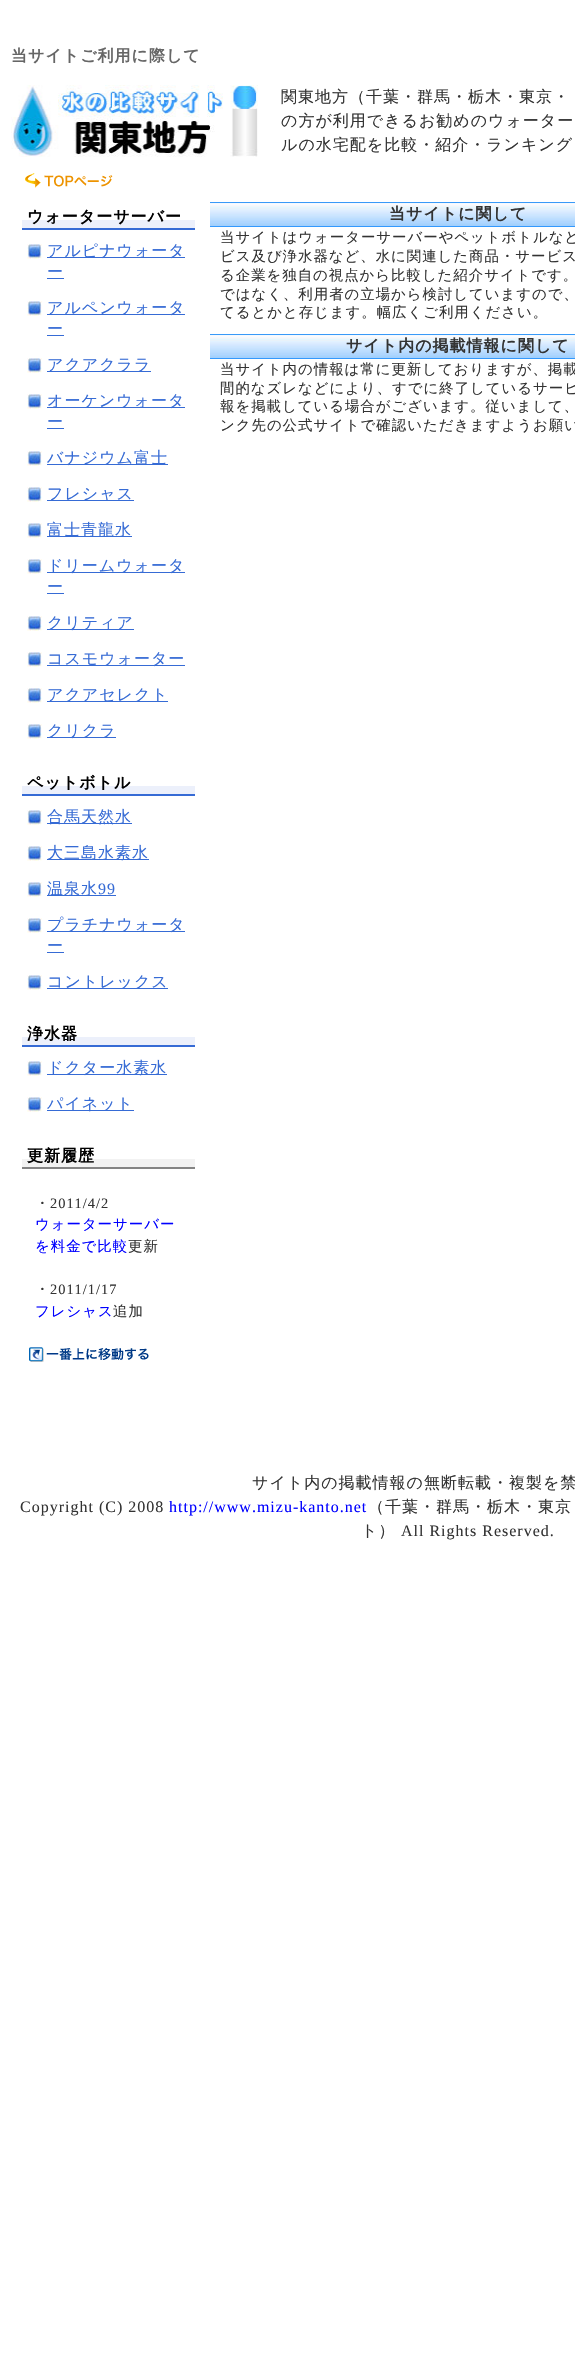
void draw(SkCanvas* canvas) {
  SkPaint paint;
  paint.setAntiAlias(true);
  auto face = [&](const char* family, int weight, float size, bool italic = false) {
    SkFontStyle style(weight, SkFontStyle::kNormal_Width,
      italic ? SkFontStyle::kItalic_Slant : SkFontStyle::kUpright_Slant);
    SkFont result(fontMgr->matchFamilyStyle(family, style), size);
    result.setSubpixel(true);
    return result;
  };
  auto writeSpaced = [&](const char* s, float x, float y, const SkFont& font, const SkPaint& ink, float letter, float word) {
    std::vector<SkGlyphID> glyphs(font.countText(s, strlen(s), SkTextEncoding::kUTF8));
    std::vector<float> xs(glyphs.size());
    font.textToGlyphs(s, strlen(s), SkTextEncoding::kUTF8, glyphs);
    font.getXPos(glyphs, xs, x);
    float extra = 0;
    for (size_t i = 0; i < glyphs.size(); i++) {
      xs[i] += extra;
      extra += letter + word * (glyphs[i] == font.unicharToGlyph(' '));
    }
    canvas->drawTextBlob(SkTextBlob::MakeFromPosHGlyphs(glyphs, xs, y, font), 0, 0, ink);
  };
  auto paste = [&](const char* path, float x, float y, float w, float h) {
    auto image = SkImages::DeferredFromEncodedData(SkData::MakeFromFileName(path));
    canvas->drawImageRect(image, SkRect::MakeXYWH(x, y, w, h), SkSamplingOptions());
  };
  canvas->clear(0xffffffff);
  paste("img/1.png", 11, 85, 247, 72);
  paste("img/2.png", 25, 173, 88, 15);
  paste("img/3.png", 22, 220, 173, 10);
  paste("img/4.png", 27, 244, 15, 15);
  paint.setColor(0xff366bd5);
  canvas->drawRect(SkRect::MakeXYWH(47, 257, 138, 1), paint);
  canvas->drawRect(SkRect::MakeXYWH(47, 278, 17, 1), paint);
  paste("img/4.png", 27, 301, 15, 15);
  canvas->drawRect(SkRect::MakeXYWH(47, 314, 138, 1), paint);
  canvas->drawRect(SkRect::MakeXYWH(47, 335, 17, 1), paint);
  paste("img/4.png", 27, 358, 15, 15);
  canvas->drawRect(SkRect::MakeXYWH(47, 371, 104, 1), paint);
  paste("img/4.png", 27, 394, 15, 15);
  canvas->drawRect(SkRect::MakeXYWH(47, 407, 138, 1), paint);
  canvas->drawRect(SkRect::MakeXYWH(47, 428, 17, 1), paint);
  paste("img/4.png", 27, 451, 15, 15);
  canvas->drawRect(SkRect::MakeXYWH(47, 464, 121, 1), paint);
  paste("img/4.png", 27, 487, 15, 15);
  canvas->drawRect(SkRect::MakeXYWH(47, 500, 87, 1), paint);
  paste("img/4.png", 27, 523, 15, 15);
  canvas->drawRect(SkRect::MakeXYWH(47, 536, 85, 1), paint);
  paste("img/4.png", 27, 559, 15, 15);
  canvas->drawRect(SkRect::MakeXYWH(47, 572, 138, 1), paint);
  canvas->drawRect(SkRect::MakeXYWH(47, 593, 17, 1), paint);
  paste("img/4.png", 27, 616, 15, 15);
  canvas->drawRect(SkRect::MakeXYWH(47, 629, 87, 1), paint);
  paste("img/4.png", 27, 652, 15, 15);
  canvas->drawRect(SkRect::MakeXYWH(47, 665, 138, 1), paint);
  paste("img/4.png", 27, 688, 15, 15);
  canvas->drawRect(SkRect::MakeXYWH(47, 701, 121, 1), paint);
  paste("img/4.png", 27, 724, 15, 15);
  canvas->drawRect(SkRect::MakeXYWH(47, 737, 69, 1), paint);
  paste("img/3.png", 22, 786, 173, 10);
  paste("img/4.png", 27, 810, 15, 15);
  canvas->drawRect(SkRect::MakeXYWH(47, 823, 85, 1), paint);
  paste("img/4.png", 27, 846, 15, 15);
  canvas->drawRect(SkRect::MakeXYWH(47, 859, 102, 1), paint);
  paste("img/4.png", 27, 882, 15, 15);
  canvas->drawRect(SkRect::MakeXYWH(47, 895, 69, 1), paint);
  paste("img/4.png", 27, 918, 15, 15);
  canvas->drawRect(SkRect::MakeXYWH(47, 931, 138, 1), paint);
  canvas->drawRect(SkRect::MakeXYWH(47, 952, 17, 1), paint);
  paste("img/4.png", 27, 975, 15, 15);
  canvas->drawRect(SkRect::MakeXYWH(47, 988, 121, 1), paint);
  paste("img/3.png", 22, 1037, 173, 10);
  paste("img/4.png", 27, 1061, 15, 15);
  canvas->drawRect(SkRect::MakeXYWH(47, 1074, 120, 1), paint);
  paste("img/4.png", 27, 1097, 15, 15);
  canvas->drawRect(SkRect::MakeXYWH(47, 1110, 87, 1), paint);
  paste("img/5.png", 22, 1159, 173, 10);
  paste("img/6.png", 210, 202, 365, 25);
  paste("img/6.png", 210, 334, 365, 25);
  paste("img/7.png", 29, 1347, 120, 15);
  auto f0 = face("WenQuanYi Zen Hei", 700, 16);
  paint.setColor(0xff666666);
  writeSpaced("当サイトご利用に際して", 11, 61, f0, paint, 1, 0);
  auto f1 = face("WenQuanYi Zen Hei", 500, 16);
  paint.setColor(0xff333333);
  {
    const struct { const char* s; float x, y; } items[] = {
      {"関東地方（千葉・群馬・栃木・東京・", 281, 102},
      {"の方が利用できるお勧めのウォーター", 281, 126},
      {"ルの水宅配を比較・紹介・ランキング", 281, 150},
    };
    for (auto [s, x, y] : items) {
      writeSpaced(s, x, y, f1, paint, 1, 0);
    }
  }
  paint.setColor(0xff000000);
  writeSpaced("ウォーターサーバー", 27, 222, f0, paint, 1, 0);
  paint.setColor(0xff366bd5);
  {
    const struct { const char* s; float x, y; } items[] = {
      {"アルピナウォータ", 47, 256},
      {"ー", 47, 277},
      {"アルペンウォータ", 47, 313},
      {"ー", 47, 334},
      {"アクアクララ", 47, 370},
      {"オーケンウォータ", 47, 406},
      {"ー", 47, 427},
      {"バナジウム富士", 47, 463},
      {"フレシャス", 47, 499},
      {"富士青龍水", 47, 535},
      {"ドリームウォータ", 47, 571},
      {"ー", 47, 592},
      {"クリティア", 47, 628},
      {"コスモウォーター", 47, 664},
      {"アクアセレクト", 47, 700},
      {"クリクラ", 47, 736},
    };
    for (auto [s, x, y] : items) {
      writeSpaced(s, x, y, f1, paint, 1, 0);
    }
  }
  paint.setColor(0xff000000);
  writeSpaced("ペットボトル", 27, 788, f0, paint, 1, 0);
  paint.setColor(0xff366bd5);
  {
    const struct { const char* s; float x, y; } items[] = {
      {"合馬天然水", 47, 822},
      {"大三島水素水", 47, 858},
      {"温泉水", 47, 894},
    };
    for (auto [s, x, y] : items) {
      writeSpaced(s, x, y, f1, paint, 1, 0);
    }
  }
  auto f2 = face("Liberation Serif", 400, 16);
  writeSpaced("99", 98, 894, f2, paint, 1, 0);
  {
    const struct { const char* s; float x, y; } items[] = {
      {"プラチナウォータ", 47, 930},
      {"ー", 47, 951},
      {"コントレックス", 47, 987},
    };
    for (auto [s, x, y] : items) {
      writeSpaced(s, x, y, f1, paint, 1, 0);
    }
  }
  paint.setColor(0xff000000);
  writeSpaced("浄水器", 27, 1039, f0, paint, 1, 0);
  paint.setColor(0xff366bd5);
  writeSpaced("ドクター水素水", 47, 1073, f1, paint, 1, 0);
  writeSpaced("パイネット", 47, 1109, f1, paint, 1, 0);
  paint.setColor(0xff000000);
  writeSpaced("更新履歴", 27, 1161, f0, paint, 1, 0);
  auto f3 = face("WenQuanYi Zen Hei", 500, 14.4f);
  paint.setColor(0xff333333);
  writeSpaced("・", 35, 1208, f3, paint, 1, 0);
  auto f4 = face("Liberation Serif", 400, 14.4f);
  writeSpaced("2011/4/2", 50, 1208, f4, paint, 1, 0);
  paint.setColor(0xff0000ff);
  writeSpaced("ウォーターサーバー", 35, 1229, f3, paint, 1, 0);
  writeSpaced("を料金で比較", 35, 1251, f3, paint, 1, 0);
  paint.setColor(0xff333333);
  writeSpaced("更新", 128, 1251, f3, paint, 1, 0);
  writeSpaced("・", 35, 1294, f3, paint, 1, 0);
  writeSpaced("2011/1/17", 50, 1294, f4, paint, 1, 0);
  paint.setColor(0xff0000ff);
  writeSpaced("フレシャス", 35, 1316, f3, paint, 1, 0);
  paint.setColor(0xff333333);
  writeSpaced("追加", 113, 1316, f3, paint, 1, 0);
  writeSpaced("当サイトに関して", 389, 219, f0, paint, 1, 0);
  {
    const struct { const char* s; float x, y; } items[] = {
      {"当サイトはウォーターサーバーやペットボトルなど", 220, 242},
      {"ビス及び浄水器など、水に関連した商品・サービス", 220, 261},
      {"る企業を独自の視点から比較した紹介サイトです。", 220, 280},
      {"ではなく、利用者の立場から検討していますので、", 220, 299},
      {"てるとかと存じます。幅広くご利用ください。", 220, 317},
    };
    for (auto [s, x, y] : items) {
      writeSpaced(s, x, y, f3, paint, 1, 0);
    }
  }
  writeSpaced("サイト内の掲載情報に関して", 346, 351, f0, paint, 1, 0);
  {
    const struct { const char* s; float x, y; } items[] = {
      {"当サイト内の情報は常に更新しておりますが、掲載", 220, 374},
      {"間的なズレなどにより、すでに終了しているサービ", 220, 393},
      {"報を掲載している場合がございます。従いまして、", 220, 411},
      {"ンク先の公式サイトで確認いただきますようお願い", 220, 430},
    };
    for (auto [s, x, y] : items) {
      writeSpaced(s, x, y, f3, paint, 1, 0);
    }
  }
  writeSpaced("サイト内の掲載情報の無断転載・複製を禁", 252, 1488, f1, paint, 1, 0);
  writeSpaced("Copyright (C) 2008", 20, 1512, f2, paint, 1, 0);
  paint.setColor(0xff0000ff);
  writeSpaced("http://www.mizu-kanto.net", 169, 1512, f2, paint, 1, 0);
  paint.setColor(0xff333333);
  writeSpaced("（千葉・群馬・栃木・東京", 368, 1512, f1, paint, 1, 0);
  writeSpaced("ト）", 361, 1536, f1, paint, 1, 0);
  writeSpaced("All Rights Reserved.", 401, 1536, f2, paint, 1, 0);
}
